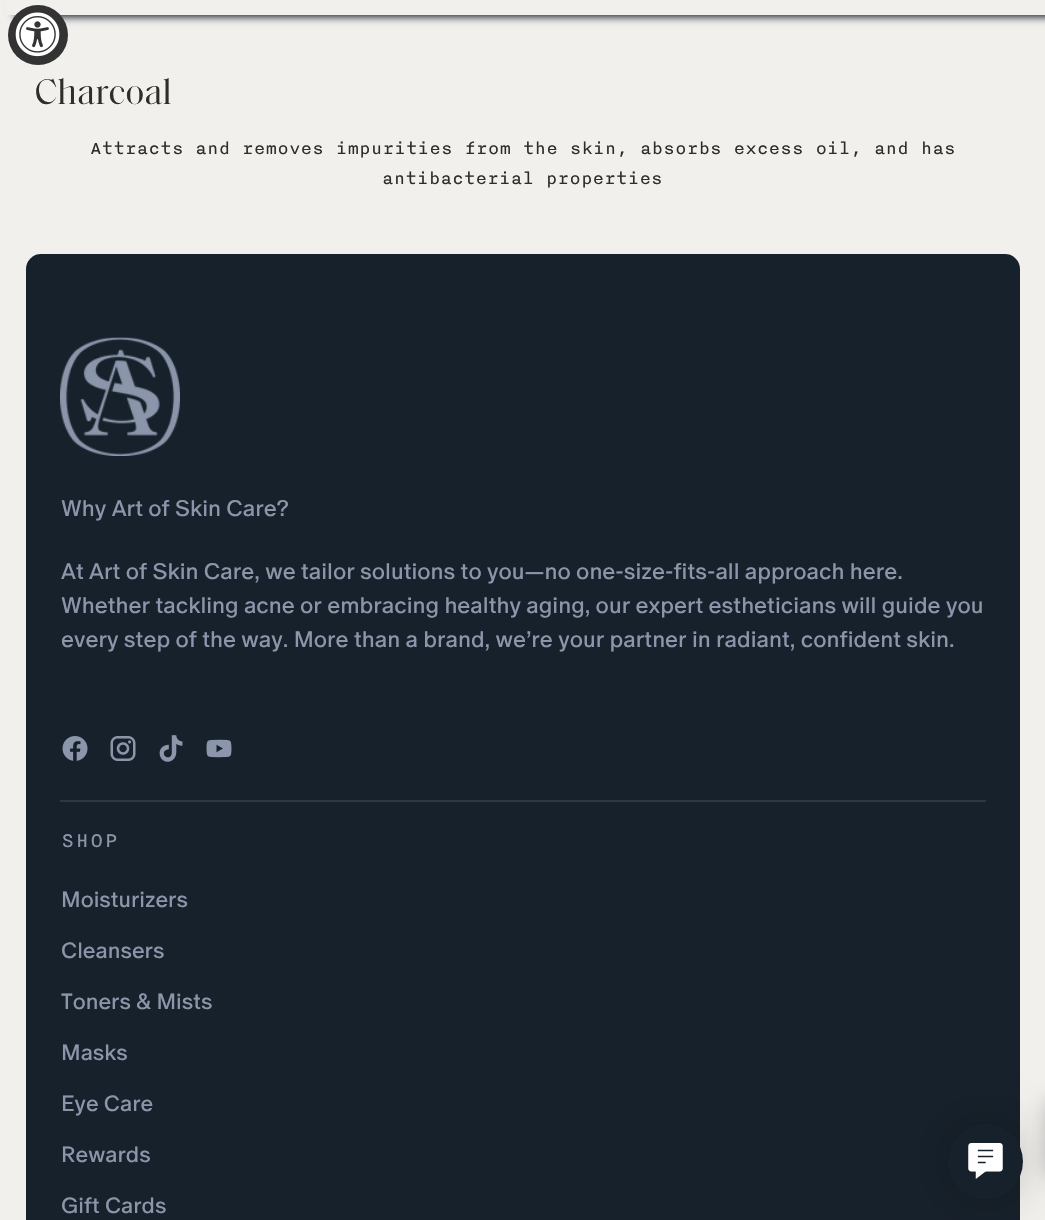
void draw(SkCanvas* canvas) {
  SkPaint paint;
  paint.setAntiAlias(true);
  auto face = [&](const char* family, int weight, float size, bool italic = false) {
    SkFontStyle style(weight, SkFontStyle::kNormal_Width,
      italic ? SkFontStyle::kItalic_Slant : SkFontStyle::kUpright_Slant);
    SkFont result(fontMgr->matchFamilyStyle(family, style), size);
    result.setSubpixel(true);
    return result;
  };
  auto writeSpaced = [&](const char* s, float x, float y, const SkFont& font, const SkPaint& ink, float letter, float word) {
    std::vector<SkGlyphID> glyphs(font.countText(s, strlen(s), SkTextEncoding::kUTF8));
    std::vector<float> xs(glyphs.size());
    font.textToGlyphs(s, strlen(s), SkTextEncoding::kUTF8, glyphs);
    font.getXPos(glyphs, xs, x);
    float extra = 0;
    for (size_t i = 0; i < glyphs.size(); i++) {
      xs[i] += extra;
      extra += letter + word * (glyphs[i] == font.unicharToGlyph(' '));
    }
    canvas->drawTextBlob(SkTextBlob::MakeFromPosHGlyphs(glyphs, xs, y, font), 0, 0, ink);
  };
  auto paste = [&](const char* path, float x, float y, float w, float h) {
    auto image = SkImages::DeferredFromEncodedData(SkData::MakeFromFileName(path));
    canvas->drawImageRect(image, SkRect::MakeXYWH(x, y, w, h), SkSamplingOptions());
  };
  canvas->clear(0xfff2f0ed);
  paint.setColor(0xff17212b);
  paint.setMaskFilter(SkMaskFilter::MakeBlur(kNormal_SkBlurStyle, 4));
  canvas->drawRect(SkRect::MakeXYWH(15, -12, 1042, 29), paint);
  paint.setMaskFilter(nullptr);
  paint.setColor(0xfff2f0ed);
  canvas->drawRect(SkRect::MakeXYWH(6, 0, 1039, 15), paint);
  paint.setColor(0xff333333);
  canvas->drawCircle(38, 35, 30, paint);
  paste("img/1.png", 15, 12, 45, 45);
  paint.setColor(0xff17212b);
  canvas->drawRoundRect(SkRect::MakeXYWH(26, 254, 994, 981), 15, 15, paint);
  paint.setColor(0xff2e3845);
  canvas->drawRect(SkRect::MakeXYWH(60, 800, 926, 2), paint);
  paste("img/2.png", 60, 337, 120, 119);
  paste("img/3.png", 62, 736, 26, 25);
  paste("img/4.png", 110, 736, 26, 25);
  paste("img/5.png", 159, 735, 24, 27);
  paste("img/6.png", 206, 739, 26, 19);
  paint.setColor(0x33000000);
  paint.setMaskFilter(SkMaskFilter::MakeBlur(kNormal_SkBlurStyle, 22.5f));
  canvas->drawRoundRect(SkRect::MakeXYWH(947, 1122, 78, 78), 39, 39, paint);
  paint.setMaskFilter(nullptr);
  paint.setColor(0x80757575);
  paint.setMaskFilter(SkMaskFilter::MakeBlur(kNormal_SkBlurStyle, 10.5f));
  canvas->drawRect(SkRect::MakeXYWH(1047, 1101, 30, 75), paint);
  paint.setMaskFilter(nullptr);
  paint.setColor(0xff17212b);
  canvas->drawCircle(985.5f, 1161.5f, 37.5f, paint);
  paste("img/7.png", 968, 1143, 35, 36);
  auto f0 = face("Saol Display", 400, 36);
  paint.setColor(0xff2d2d2c);
  canvas->drawString("Charcoal", 35, 104, f0, paint);
  auto f1 = face("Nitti", 400, 19.5f);
  canvas->drawString("Attracts and removes impurities from the skin, absorbs excess oil, and has", 90, 154, f1, paint);
  canvas->drawString("antibacterial properties", 382, 184, f1, paint);
  auto f2 = face("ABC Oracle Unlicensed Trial", 400, 22.5f);
  paint.setColor(0xff8c96ab);
  {
    const struct { const char* s; float x, y; } items[] = {
      {"Why Art of Skin Care?", 61, 516},
      {"At Art of Skin Care, we tailor solutions to you—no one-size-fits-all approach here.", 61, 579},
      {"Whether tackling acne or embracing healthy aging, our expert estheticians will guide you", 61, 613},
      {"every step of the way. More than a brand, we’re your partner in radiant, confident skin.", 61, 647},
    };
    for (auto [s, x, y] : items) {
      canvas->drawString(s, x, y, f2, paint);
    }
  }
  auto f3 = face("Nitti", 400, 22.5f);
  writeSpaced("SHOP", 61, 847, f3, paint, 1, 0);
  auto f4 = face("ABC Oracle Unlicensed Trial", 400, 22);
  {
    const struct { const char* s; float x, y; } items[] = {
      {"Moisturizers", 61, 907},
      {"Cleansers", 61, 958},
      {"Toners & Mists", 61, 1009},
      {"Masks", 61, 1060},
      {"Eye Care", 61, 1111},
      {"Rewards", 61, 1162},
      {"Gift Cards", 61, 1213},
    };
    for (auto [s, x, y] : items) {
      canvas->drawString(s, x, y, f4, paint);
    }
  }
}
